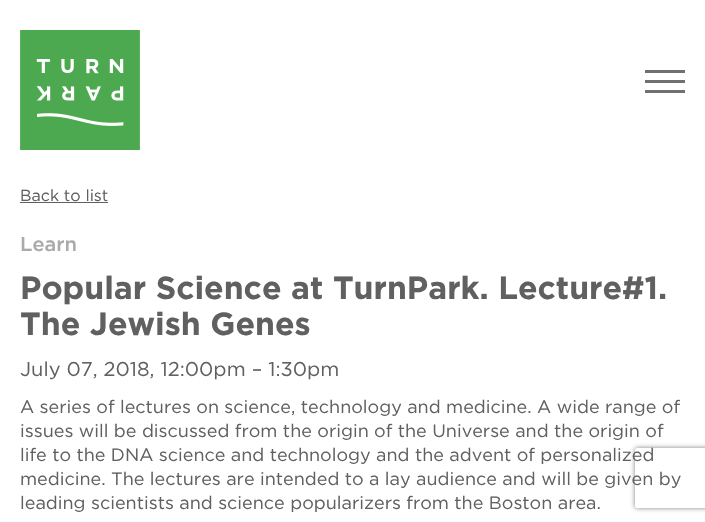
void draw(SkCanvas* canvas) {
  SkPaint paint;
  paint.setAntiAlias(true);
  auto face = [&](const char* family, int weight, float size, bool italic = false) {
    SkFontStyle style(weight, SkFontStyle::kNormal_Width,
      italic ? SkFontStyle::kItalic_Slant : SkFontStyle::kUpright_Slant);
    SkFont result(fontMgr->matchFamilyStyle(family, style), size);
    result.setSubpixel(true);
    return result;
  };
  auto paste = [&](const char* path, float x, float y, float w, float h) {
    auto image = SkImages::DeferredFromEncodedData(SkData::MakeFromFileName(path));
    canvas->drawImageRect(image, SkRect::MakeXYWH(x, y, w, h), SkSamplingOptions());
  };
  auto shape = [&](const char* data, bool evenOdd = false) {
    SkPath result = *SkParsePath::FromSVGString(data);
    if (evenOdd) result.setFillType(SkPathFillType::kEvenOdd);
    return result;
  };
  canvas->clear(0xffffffff);
  paste("img/1.png", 20, 30, 120, 120);
  {
    const struct { float x, y, w, h; SkColor color; } items[] = {
      {645, 70, 40, 3, 0xff707070},
      {645, 80, 40, 3, 0xff707070},
      {645, 90, 40, 3, 0xff707070},
      {20, 202, 88, 1, 0xff606060},
    };
    for (auto [x, y, w, h, color] : items) {
      paint.setColor(color);
      canvas->drawRect(SkRect::MakeXYWH(x, y, w, h), paint);
    }
  }
  canvas->save();
  canvas->clipPath(shape("M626 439H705V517H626ZM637 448H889C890 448 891 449 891 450V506C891 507 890 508 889 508H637C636 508 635 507 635 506V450C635 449 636 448 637 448Z", true), true);
  paint.setColor(0xff808080);
  paint.setMaskFilter(SkMaskFilter::MakeBlur(kNormal_SkBlurStyle, 2.5f));
  canvas->drawRoundRect(SkRect::MakeXYWH(635, 448, 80, 60), 2, 2, paint);
  paint.setMaskFilter(nullptr);
  canvas->restore();
  auto f0 = face("Gotham", 400, 16);
  paint.setColor(0xff606060);
  canvas->drawString("Back to list", 20, 201, f0, paint);
  auto f1 = face("Gotham", 500, 20);
  paint.setColor(0xffaaaaaa);
  canvas->drawString("Learn", 20, 251, f1, paint);
  auto f2 = face("Gotham", 700, 32);
  paint.setColor(0xff606060);
  canvas->drawString("Popular Science at TurnPark. Lecture#1.", 20, 299, f2, paint);
  canvas->drawString("The Jewish Genes", 20, 335, f2, paint);
  auto f3 = face("Gotham", 400, 20);
  canvas->drawString("July 07, 2018, 12:00pm – 1:30pm", 20, 376, f3, paint);
  auto f4 = face("Gotham", 400, 18);
  {
    const struct { const char* s; float x, y; } items[] = {
      {"A series of lectures on science, technology and medicine. A wide range of", 20, 413},
      {"issues will be discussed from the origin of the Universe and the origin of", 20, 437},
      {"life to the DNA science and technology and the advent of personalized", 20, 461},
      {"medicine. The lectures are intended to a lay audience and will be given by", 20, 485},
      {"leading scientists and science popularizers from the Boston area.", 20, 509},
    };
    for (auto [s, x, y] : items) {
      canvas->drawString(s, x, y, f4, paint);
    }
  }
}
